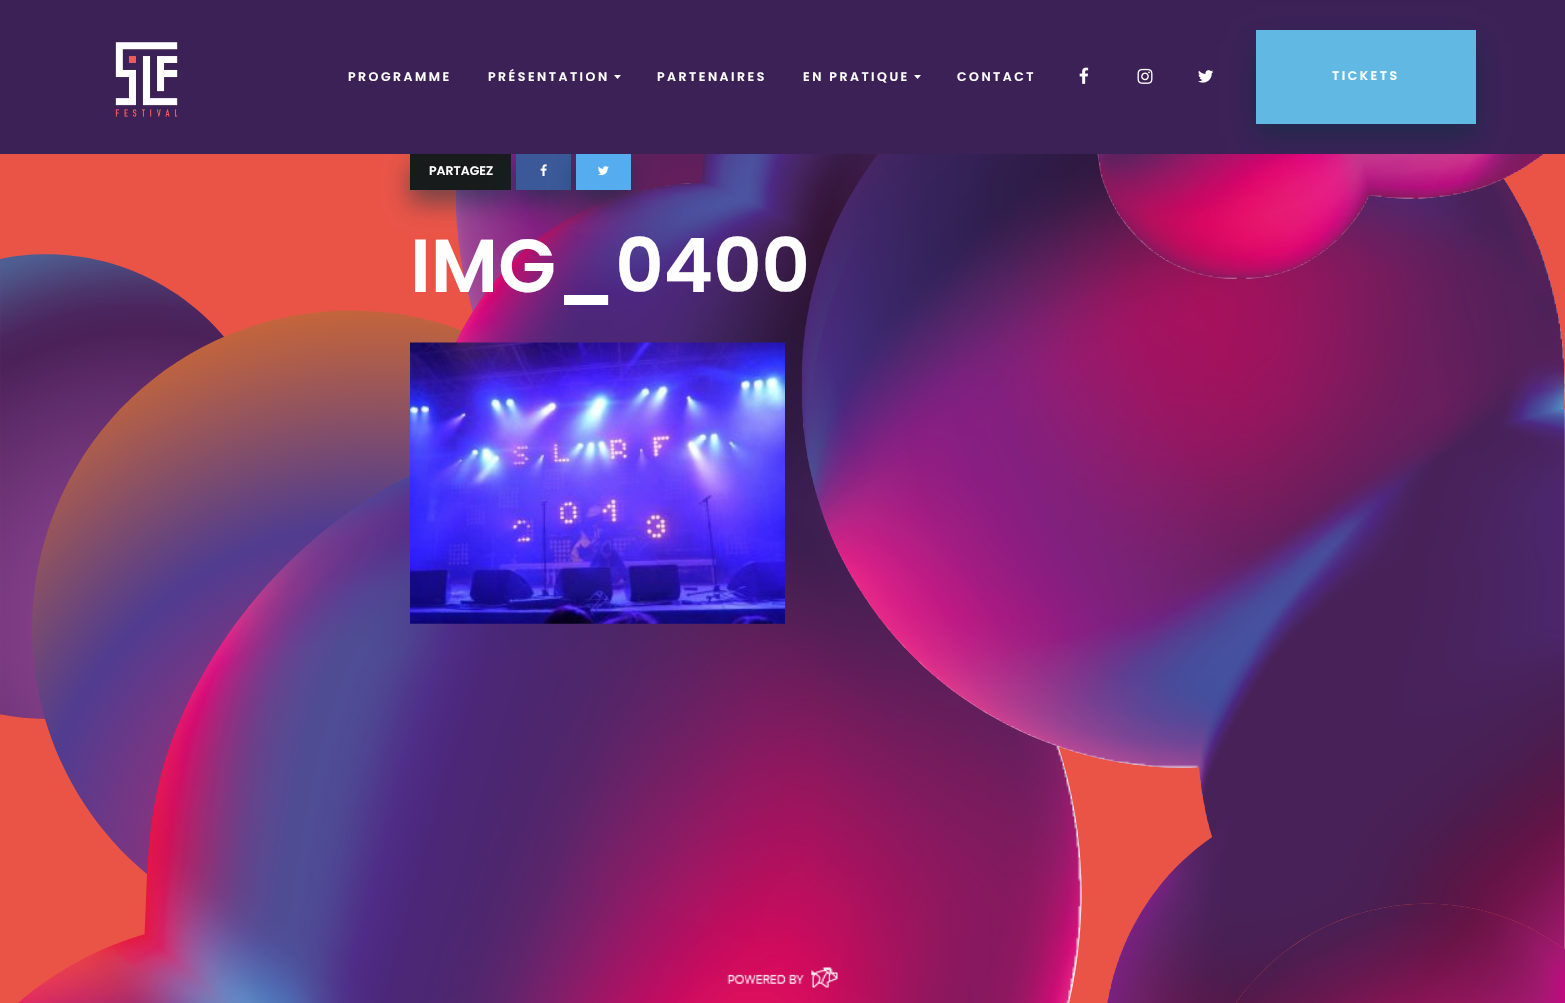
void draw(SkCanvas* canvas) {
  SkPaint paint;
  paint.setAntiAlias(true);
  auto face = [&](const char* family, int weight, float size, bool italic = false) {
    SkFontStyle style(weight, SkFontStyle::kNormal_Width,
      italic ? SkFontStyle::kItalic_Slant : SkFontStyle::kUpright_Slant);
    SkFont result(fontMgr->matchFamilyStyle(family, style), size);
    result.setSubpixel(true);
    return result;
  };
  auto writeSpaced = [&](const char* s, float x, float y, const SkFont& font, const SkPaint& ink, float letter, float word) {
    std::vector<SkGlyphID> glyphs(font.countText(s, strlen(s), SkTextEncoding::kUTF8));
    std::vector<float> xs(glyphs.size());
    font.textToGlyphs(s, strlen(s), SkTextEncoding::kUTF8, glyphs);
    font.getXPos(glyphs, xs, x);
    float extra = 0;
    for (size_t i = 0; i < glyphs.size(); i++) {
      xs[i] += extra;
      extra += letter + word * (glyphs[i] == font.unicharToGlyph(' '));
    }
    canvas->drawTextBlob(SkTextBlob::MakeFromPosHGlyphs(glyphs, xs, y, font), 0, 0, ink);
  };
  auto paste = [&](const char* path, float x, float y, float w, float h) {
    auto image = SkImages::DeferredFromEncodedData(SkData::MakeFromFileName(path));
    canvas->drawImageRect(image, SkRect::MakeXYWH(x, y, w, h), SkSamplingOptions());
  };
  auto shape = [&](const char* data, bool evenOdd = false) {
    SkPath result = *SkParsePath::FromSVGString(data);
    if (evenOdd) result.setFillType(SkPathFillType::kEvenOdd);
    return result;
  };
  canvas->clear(0xffffffff);
  paste("img/1.png", 0, 154, 1565, 849);
  paint.setColor(0x80003042);
  paint.setMaskFilter(SkMaskFilter::MakeBlur(kNormal_SkBlurStyle, 12.5f));
  canvas->drawRect(SkRect::MakeXYWH(410, 166, 101, 37), paint);
  paint.setMaskFilter(nullptr);
  paint.setColor(0xff181b1b);
  canvas->drawRect(SkRect::MakeXYWH(410, 154, 101, 36), paint);
  paint.setColor(0x80003042);
  paint.setMaskFilter(SkMaskFilter::MakeBlur(kNormal_SkBlurStyle, 12.5f));
  canvas->drawRect(SkRect::MakeXYWH(516, 166, 55, 37), paint);
  paint.setMaskFilter(nullptr);
  paint.setColor(0xff3b5998);
  canvas->drawRect(SkRect::MakeXYWH(516, 154, 55, 36), paint);
  paste("img/6.png", 540, 164, 7, 12);
  paint.setColor(0x80003042);
  paint.setMaskFilter(SkMaskFilter::MakeBlur(kNormal_SkBlurStyle, 12.5f));
  canvas->drawRect(SkRect::MakeXYWH(576, 166, 55, 37), paint);
  paint.setMaskFilter(nullptr);
  paint.setColor(0xff3c2156);
  canvas->drawRect(SkRect::MakeXYWH(0, 0, 1565, 154), paint);
  paste("img/2.png", 115, 42, 63, 75);
  paint.setColor(0xffffffff);
  canvas->drawPath(shape("M614 75H621L617.5 79Z"), paint);
  canvas->drawPath(shape("M914 75H921L917.5 79Z"), paint);
  paste("img/3.png", 1079, 67, 10, 17);
  paste("img/4.png", 1137, 68, 16, 16);
  paste("img/5.png", 1198, 70, 16, 13);
  canvas->save();
  canvas->clipRect(SkRect::MakeXYWH(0, 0, 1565, 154));
  paint.setColor(0x80003042);
  paint.setMaskFilter(SkMaskFilter::MakeBlur(kNormal_SkBlurStyle, 12.5f));
  canvas->drawRect(SkRect::MakeXYWH(1256, 43, 220, 93), paint);
  paint.setMaskFilter(nullptr);
  canvas->restore();
  paint.setColor(0xff61b8e2);
  canvas->drawRect(SkRect::MakeXYWH(1256, 30, 220, 94), paint);
  paint.setColor(0xff55acee);
  canvas->drawRect(SkRect::MakeXYWH(576, 154, 55, 36), paint);
  paste("img/7.png", 598, 166, 11, 10);
  paste("img/8.png", 410, 342, 375, 282);
  paste("img/9.png", 727, 967, 111, 21);
  auto f0 = face("Poppins", 600, 12.5f);
  paint.setColor(0xffffffff);
  {
    const struct { const char* s; float x, y; } items[] = {
      {"PROGRAMME", 348, 81},
      {"PRÉSENTATION", 488, 81},
      {"PARTENAIRES", 657, 81},
      {"EN PRATIQUE", 803, 81},
      {"CONTACT", 957, 81},
      {"TICKETS", 1332, 80},
    };
    for (auto [s, x, y] : items) {
      writeSpaced(s, x, y, f0, paint, 2.5f, 0);
    }
  }
  canvas->drawString("PARTAGEZ", 429, 175, f0, paint);
  auto f1 = face("Poppins", 600, 75);
  canvas->drawString("IMG_0400", 410, 292, f1, paint);
}
